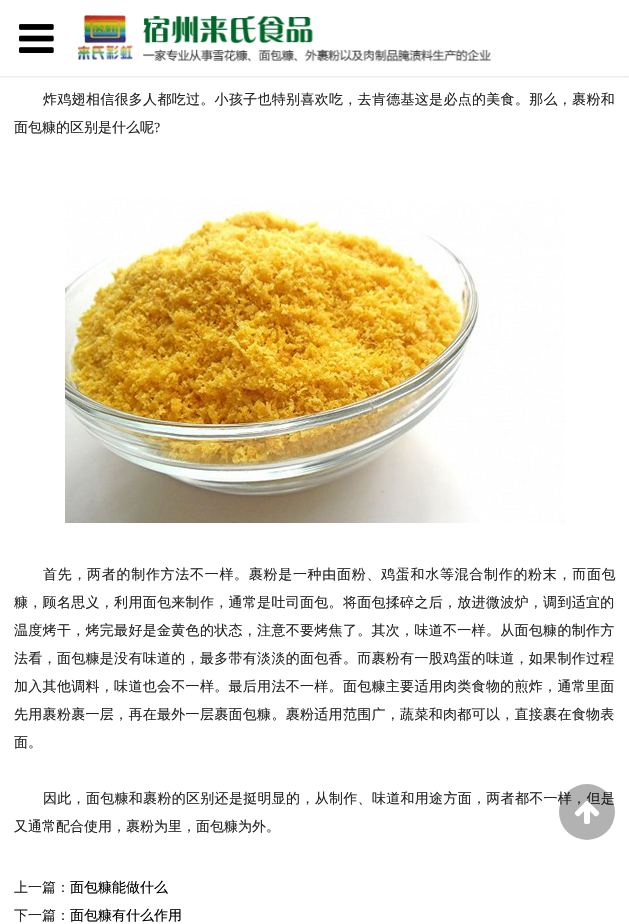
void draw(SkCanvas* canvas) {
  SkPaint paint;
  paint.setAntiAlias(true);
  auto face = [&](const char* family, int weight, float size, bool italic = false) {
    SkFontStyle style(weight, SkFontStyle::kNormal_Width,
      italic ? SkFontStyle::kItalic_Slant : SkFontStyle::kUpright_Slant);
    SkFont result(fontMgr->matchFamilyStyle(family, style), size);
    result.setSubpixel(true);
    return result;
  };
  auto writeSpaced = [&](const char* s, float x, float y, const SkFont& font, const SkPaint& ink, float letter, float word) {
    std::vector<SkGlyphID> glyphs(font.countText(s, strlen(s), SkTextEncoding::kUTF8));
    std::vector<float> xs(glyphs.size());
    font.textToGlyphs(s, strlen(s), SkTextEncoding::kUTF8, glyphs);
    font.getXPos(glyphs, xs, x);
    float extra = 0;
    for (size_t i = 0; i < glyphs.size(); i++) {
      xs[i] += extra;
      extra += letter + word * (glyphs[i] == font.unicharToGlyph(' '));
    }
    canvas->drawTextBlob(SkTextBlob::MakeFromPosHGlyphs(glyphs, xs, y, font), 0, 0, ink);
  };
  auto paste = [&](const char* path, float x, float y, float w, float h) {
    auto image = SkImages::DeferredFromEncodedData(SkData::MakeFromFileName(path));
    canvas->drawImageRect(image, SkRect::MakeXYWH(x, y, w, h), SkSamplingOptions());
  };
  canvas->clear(0xffffffff);
  paint.setColor(0x1a000000);
  paint.setMaskFilter(SkMaskFilter::MakeBlur(kNormal_SkBlurStyle, 1));
  canvas->drawRect(SkRect::MakeXYWH(0, 1, 629, 76), paint);
  paint.setMaskFilter(nullptr);
  paint.setColor(0xffffffff);
  canvas->drawRect(SkRect::MakeXYWH(0, 0, 629, 76), paint);
  paste("img/1.png", 19, 24, 35, 29);
  paste("img/2.png", 78, 15, 414, 47);
  paste("img/3.png", 65, 198, 500, 325);
  auto f0 = face("WenQuanYi Zen Hei", 500, 14);
  paint.setColor(0xff242424);
  writeSpaced("炸鸡翅相信很多人都吃过。小孩子也特别喜欢吃，去肯德基这是必点的美食。那么，裹粉和", 43, 104, f0, paint, 0.3f, 0);
  canvas->drawString("面包糠的区别是什么呢", 14, 132, f0, paint);
  auto f1 = face("Liberation Serif", 400, 14);
  canvas->drawString("?", 154, 132, f1, paint);
  writeSpaced("首先，两者的制作方法不一样。裹粉是一种由面粉、鸡蛋和水等混合制作的粉末，而面包", 43, 579, f0, paint, 0.7f, 0);
  {
    const struct { const char* s; float x, y; } items[] = {
      {"糠，顾名思义，利用面包来制作，通常是吐司面包。将面包揉碎之后，放进微波炉，调到适宜的", 14, 607},
      {"温度烤干，烤完最好是金黄色的状态，注意不要烤焦了。其次，味道不一样。从面包糠的制作方", 14, 635},
      {"法看，面包糠是没有味道的，最多带有淡淡的面包香。而裹粉有一股鸡蛋的味道，如果制作过程", 14, 663},
      {"加入其他调料，味道也会不一样。最后用法不一样。面包糠主要适用肉类食物的煎炸，通常里面", 14, 691},
      {"先用裹粉裹一层，再在最外一层裹面包糠。裹粉适用范围广，蔬菜和肉都可以，直接裹在食物表", 14, 719},
    };
    for (auto [s, x, y] : items) {
      writeSpaced(s, x, y, f0, paint, 0.3f, 0);
    }
  }
  canvas->drawString("面。", 14, 747, f0, paint);
  writeSpaced("因此，面包糠和裹粉的区别还是挺明显的，从制作、味道和用途方面，两者都不一样，但是", 43, 803, f0, paint, 0.3f, 0);
  canvas->drawString("又通常配合使用，裹粉为里，面包糠为外。", 14, 831, f0, paint);
  canvas->drawString("上一篇：", 14, 892, f0, paint);
  paint.setColor(0xff000000);
  canvas->drawString("面包糠能做什么", 70, 892, f0, paint);
  paint.setColor(0xff242424);
  canvas->drawString("下一篇：", 14, 920, f0, paint);
  paint.setColor(0xff000000);
  canvas->drawString("面包糠有什么作用", 70, 920, f0, paint);
  paint.setColor(0x4d000000);
  canvas->drawCircle(587, 812, 28, paint);
  paste("img/4.png", 574, 801, 26, 23);
}
